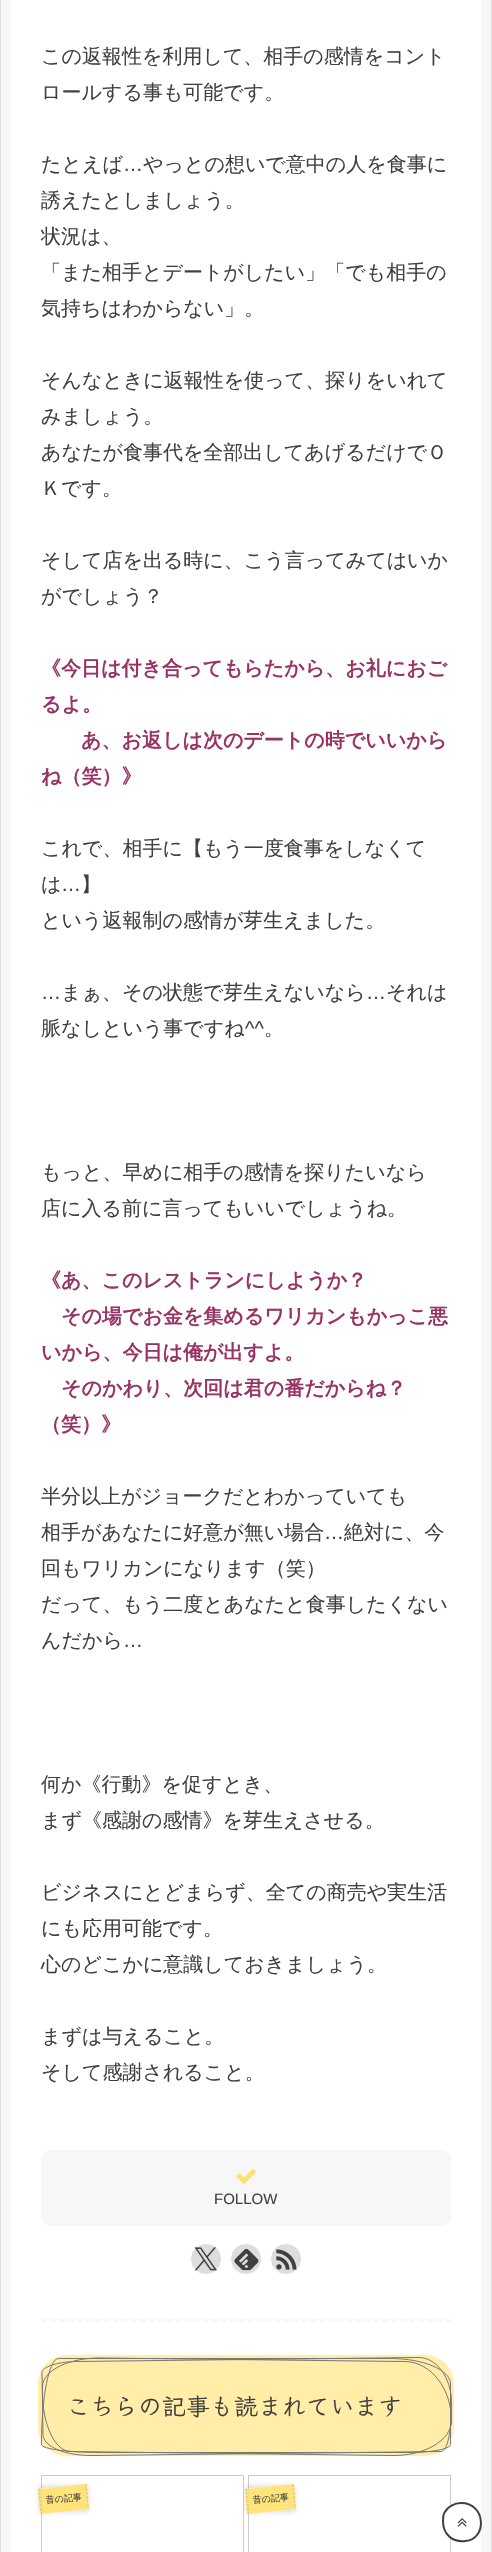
void draw(SkCanvas* canvas) {
  SkPaint paint;
  paint.setAntiAlias(true);
  auto face = [&](const char* family, int weight, float size, bool italic = false) {
    SkFontStyle style(weight, SkFontStyle::kNormal_Width,
      italic ? SkFontStyle::kItalic_Slant : SkFontStyle::kUpright_Slant);
    SkFont result(fontMgr->matchFamilyStyle(family, style), size);
    result.setSubpixel(true);
    return result;
  };
  auto paste = [&](const char* path, float x, float y, float w, float h) {
    auto image = SkImages::DeferredFromEncodedData(SkData::MakeFromFileName(path));
    canvas->drawImageRect(image, SkRect::MakeXYWH(x, y, w, h), SkSamplingOptions());
  };
  auto shape = [&](const char* data, bool evenOdd = false) {
    SkPath result = *SkParsePath::FromSVGString(data);
    if (evenOdd) result.setFillType(SkPathFillType::kEvenOdd);
    return result;
  };
  canvas->clear(0xffffffff);
  paint.setStroke(true);
  paint.setStrokeWidth(10);
  paint.setColor(0xfff7f7f7);
  canvas->drawPath(shape("M6-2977H486V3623H6Z"), paint);
  paint.setStrokeWidth(1);
  paint.setColor(0xffdddddd);
  canvas->drawRect(SkRect::MakeXYWH(0.5f, -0.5f, 491, 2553), paint);
  paint.setStrokeWidth(3);
  paint.setColor(0xfff7f7f7);
  paint.setPathEffect(SkDashPathEffect::Make({{6, 2.98f}}, 0));
  canvas->drawPath(shape("M41 2320.5H451"), paint);
  paint.setPathEffect(nullptr);
  paint.setStroke(false);
  canvas->drawRoundRect(SkRect::MakeXYWH(41, 2150, 410, 76), 10, 10, paint);
  paste("img/1.png", 236, 2169, 20, 15);
  paint.setColor(0xffdddddd);
  canvas->drawCircle(206, 2259, 15.5f, paint);
  paint.setStroke(true);
  paint.setStrokeWidth(1);
  paint.setColor(0xffffffff);
  canvas->drawCircle(206, 2259, 15.5f, paint);
  paste("img/2.png", 194, 2247, 23, 24);
  paint.setStroke(false);
  paint.setColor(0xffdddddd);
  canvas->drawCircle(246, 2259, 15.5f, paint);
  paint.setStroke(true);
  paint.setColor(0xffffffff);
  canvas->drawCircle(246, 2259, 15.5f, paint);
  paste("img/3.png", 234, 2248, 25, 23);
  paint.setStroke(false);
  paint.setColor(0xffdddddd);
  canvas->drawCircle(286, 2259, 15.5f, paint);
  paint.setStroke(true);
  paint.setColor(0xffffffff);
  canvas->drawCircle(286, 2259, 15.5f, paint);
  paste("img/4.png", 276, 2249, 21, 21);
  canvas->save();
  canvas->clipPath(shape("M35 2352H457V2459H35ZM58.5 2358H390.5C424 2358 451 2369.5 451 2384V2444.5C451 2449 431.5 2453 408 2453H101.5C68 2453 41 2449 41 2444.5C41 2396.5 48.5 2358 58.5 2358Z", true), true);
  paint.setStroke(false);
  paint.setColor(0x99ffe16e);
  paint.setMaskFilter(SkMaskFilter::MakeBlur(kNormal_SkBlurStyle, 0.5f));
  canvas->drawRoundRect(SkRect::MakeXYWH(38, 2355, 416, 101), 29, 29, paint);
  paint.setMaskFilter(nullptr);
  canvas->restore();
  canvas->drawPath(shape("M58 2358H391C424 2358 451 2370 451 2384V2444C451 2449 432 2453 408 2453H101C68 2453 41 2449 41 2444C41 2397 49 2358 58 2358Z"), paint);
  paint.setStroke(true);
  paint.setColor(0xff777777);
  canvas->drawPath(shape("M58.5 2358.5H390.5C423.5 2358.5 450.5 2370 450.5 2384V2444.5C450.5 2449 431.5 2452.5 408 2452.5H101.5C68.5 2452.5 41.5 2449 41.5 2444.5C41.5 2397 49 2358.5 58.5 2358.5Z"), paint);
  paint.setColor(0xffcccccc);
  canvas->drawRect(SkRect::MakeXYWH(41.5f, 2475.5f, 202, 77), paint);
  canvas->save();
  canvas->clipPath(shape("M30 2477H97V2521H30ZM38 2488.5L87 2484.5L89.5 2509.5L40.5 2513.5Z", true), true);
  paint.setStroke(false);
  paint.setColor(0x3341403e);
  paint.setMaskFilter(SkMaskFilter::MakeBlur(kNormal_SkBlurStyle, 2.5f));
  canvas->drawRect(SkRect::MakeXYWH(39, 2486, 49, 26), paint);
  paint.setMaskFilter(nullptr);
  canvas->restore();
  paint.setColor(0xe6ffe16e);
  canvas->drawPath(shape("M38 2489L87 2484L89 2509L40 2514Z"), paint);
  paint.setStroke(true);
  paint.setStrokeWidth(2);
  paint.setColor(0x2641403e);
  paint.setPathEffect(SkDashPathEffect::Make({{2, 2}}, 0));
  canvas->drawPath(shape("M86 2484.5L88.5 2509.5M39 2488.5L41.5 2513.5"), paint);
  paint.setPathEffect(nullptr);
  paint.setStrokeWidth(1);
  paint.setColor(0xffcccccc);
  canvas->drawRect(SkRect::MakeXYWH(248.5f, 2475.5f, 202, 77), paint);
  canvas->save();
  canvas->clipPath(shape("M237 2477H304V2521H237ZM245 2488.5L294 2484.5L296.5 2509.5L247.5 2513.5Z", true), true);
  paint.setStroke(false);
  paint.setColor(0x3341403e);
  paint.setMaskFilter(SkMaskFilter::MakeBlur(kNormal_SkBlurStyle, 2.5f));
  canvas->drawRect(SkRect::MakeXYWH(246, 2486, 49, 26), paint);
  paint.setMaskFilter(nullptr);
  canvas->restore();
  paint.setColor(0xe6ffe16e);
  canvas->drawPath(shape("M245 2489L294 2484L296 2509L247 2514Z"), paint);
  paint.setStroke(true);
  paint.setStrokeWidth(2);
  paint.setColor(0x2641403e);
  paint.setPathEffect(SkDashPathEffect::Make({{2, 2}}, 0));
  canvas->drawPath(shape("M293 2484.5L295.5 2509.5M246 2488.5L248.5 2513.5"), paint);
  paint.setPathEffect(nullptr);
  paint.setStroke(false);
  paint.setColor(0xffffffff);
  canvas->drawPath(shape("M461 2502C487 2502 489 2540 466 2542C436 2544 433 2502 461 2502Z"), paint);
  paint.setStroke(true);
  paint.setColor(0xff41403e);
  canvas->drawPath(shape("M461 2503C486 2503 487.5 2539 465.5 2541C452.5 2542.5 443 2534.5 443 2521C443 2518 443 2515 444.5 2512.5C447.5 2506.5 454.5 2503 461 2503Z"), paint);
  paste("img/5.png", 457, 2518, 10, 9);
  auto f0 = face("WenQuanYi Zen Hei", 500, 20);
  paint.setStroke(false);
  {
    const struct { const char* s; float x, y; } items[] = {
      {"この返報性を利用して、相手の感情をコント", 41, 63},
      {"ロールする事も可能です。", 41, 99},
      {"たとえば", 41, 171},
    };
    for (auto [s, x, y] : items) {
      canvas->drawString(s, x, y, f0, paint);
    }
  }
  auto f1 = face("Liberation Sans", 400, 20);
  canvas->drawString("…", 123, 171, f1, paint);
  {
    const struct { const char* s; float x, y; } items[] = {
      {"やっとの想いで意中の人を食事に", 143, 171},
      {"誘えたとしましょう。", 41, 207},
      {"状況は、", 41, 243},
      {"「また相手とデートがしたい」「でも相手の", 41, 279},
      {"気持ちはわからない」。", 41, 315},
      {"そんなときに返報性を使って、探りをいれて", 41, 387},
      {"みましょう。", 41, 423},
      {"あなたが食事代を全部出してあげるだけでＯ", 41, 459},
      {"Ｋです。", 41, 495},
      {"そして店を出る時に、こう言ってみてはいか", 41, 567},
      {"がでしょう？", 41, 603},
    };
    for (auto [s, x, y] : items) {
      canvas->drawString(s, x, y, f0, paint);
    }
  }
  auto f2 = face("WenQuanYi Zen Hei", 700, 20);
  paint.setColor(0xff993366);
  {
    const struct { const char* s; float x, y; } items[] = {
      {"《今日は付き合ってもらたから、お礼におご", 41, 675},
      {"るよ。", 41, 711},
      {"あ、お返しは次のデートの時でいいから", 81, 747},
      {"ね（笑）》", 41, 783},
    };
    for (auto [s, x, y] : items) {
      canvas->drawString(s, x, y, f2, paint);
    }
  }
  paint.setColor(0xff41403e);
  canvas->drawString("これで、相手に【もう一度食事をしなくて", 41, 855, f0, paint);
  canvas->drawString("は", 41, 891, f0, paint);
  canvas->drawString("…", 61, 891, f1, paint);
  canvas->drawString("】", 81, 891, f0, paint);
  canvas->drawString("という返報制の感情が芽生えました。", 41, 927, f0, paint);
  canvas->drawString("…", 41, 999, f1, paint);
  canvas->drawString("まぁ、その状態で芽生えないなら", 61, 999, f0, paint);
  canvas->drawString("…", 366, 999, f1, paint);
  canvas->drawString("それは", 386, 999, f0, paint);
  canvas->drawString("脈なしという事ですね", 41, 1035, f0, paint);
  canvas->drawString("^^", 245, 1035, f1, paint);
  {
    const struct { const char* s; float x, y; } items[] = {
      {"。", 264, 1035},
      {"もっと、早めに相手の感情を探りたいなら", 41, 1179},
      {"店に入る前に言ってもいいでしょうね。", 41, 1215},
    };
    for (auto [s, x, y] : items) {
      canvas->drawString(s, x, y, f0, paint);
    }
  }
  paint.setColor(0xff993366);
  {
    const struct { const char* s; float x, y; } items[] = {
      {"《あ、このレストランにしようか？", 41, 1287},
      {"その場でお金を集めるワリカンもかっこ悪", 61, 1323},
      {"いから、今日は俺が出すよ。", 41, 1359},
      {"そのかわり、次回は君の番だからね？", 61, 1395},
      {"（笑）》", 41, 1431},
    };
    for (auto [s, x, y] : items) {
      canvas->drawString(s, x, y, f2, paint);
    }
  }
  paint.setColor(0xff41403e);
  canvas->drawString("半分以上がジョークだとわかっていても", 41, 1503, f0, paint);
  canvas->drawString("相手があなたに好意が無い場合", 41, 1539, f0, paint);
  canvas->drawString("…", 324, 1539, f1, paint);
  {
    const struct { const char* s; float x, y; } items[] = {
      {"絶対に、今", 344, 1539},
      {"回もワリカンになります（笑）", 41, 1575},
      {"だって、もう二度とあなたと食事したくない", 41, 1611},
      {"んだから", 41, 1647},
    };
    for (auto [s, x, y] : items) {
      canvas->drawString(s, x, y, f0, paint);
    }
  }
  canvas->drawString("…", 123, 1647, f1, paint);
  {
    const struct { const char* s; float x, y; } items[] = {
      {"何か《行動》を促すとき、", 41, 1791},
      {"まず《感謝の感情》を芽生えさせる。", 41, 1827},
      {"ビジネスにとどまらず、全ての商売や実生活", 41, 1899},
      {"にも応用可能です。", 41, 1935},
      {"心のどこかに意識しておきましょう。", 41, 1971},
      {"まずは与えること。", 41, 2043},
      {"そして感謝されること。", 41, 2079},
    };
    for (auto [s, x, y] : items) {
      canvas->drawString(s, x, y, f0, paint);
    }
  }
  auto f3 = face("Liberation Sans", 400, 15);
  canvas->drawString("FOLLOW", 214, 2204, f3, paint);
  auto f4 = face("Klee One", 600, 24);
  canvas->drawString("こちらの記事も読まれています", 66, 2415, f4, paint);
  paint.setStroke(true);
  paint.setStrokeWidth(1);
  paint.setColor(0xff777777);
  canvas->drawPath(shape("M75 2361.5L418 2357.5C436 2357 451 2377 451.5 2401.5C452 2429 447.5 2451.5 441.5 2451.5L93 2455.5C65.5 2456 43 2446.5 43 2434.5L42 2372.5C42 2367 57 2362 75 2361.5Z"), paint);
  canvas->drawPath(shape("M102 2358L405 2361.5C431 2362 451.5 2388.5 451.5 2421C451 2440.5 424.5 2456 392 2455.5L71 2451.5C55 2451.5 42.5 2425 42.5 2392V2386.5C43 2370 69.5 2357.5 102 2358Z"), paint);
  auto f5 = face("WenQuanYi Zen Hei", 500, 9);
  paint.setStroke(false);
  paint.setColor(0xff41403e);
  canvas->save();
  canvas->rotate(-5, 46, 2503);
  canvas->drawString("昔の記事", 46, 2503, f5, paint);
  canvas->restore();
  canvas->save();
  canvas->rotate(-5, 253, 2503);
  canvas->drawString("昔の記事", 253, 2503, f5, paint);
  canvas->restore();
}
